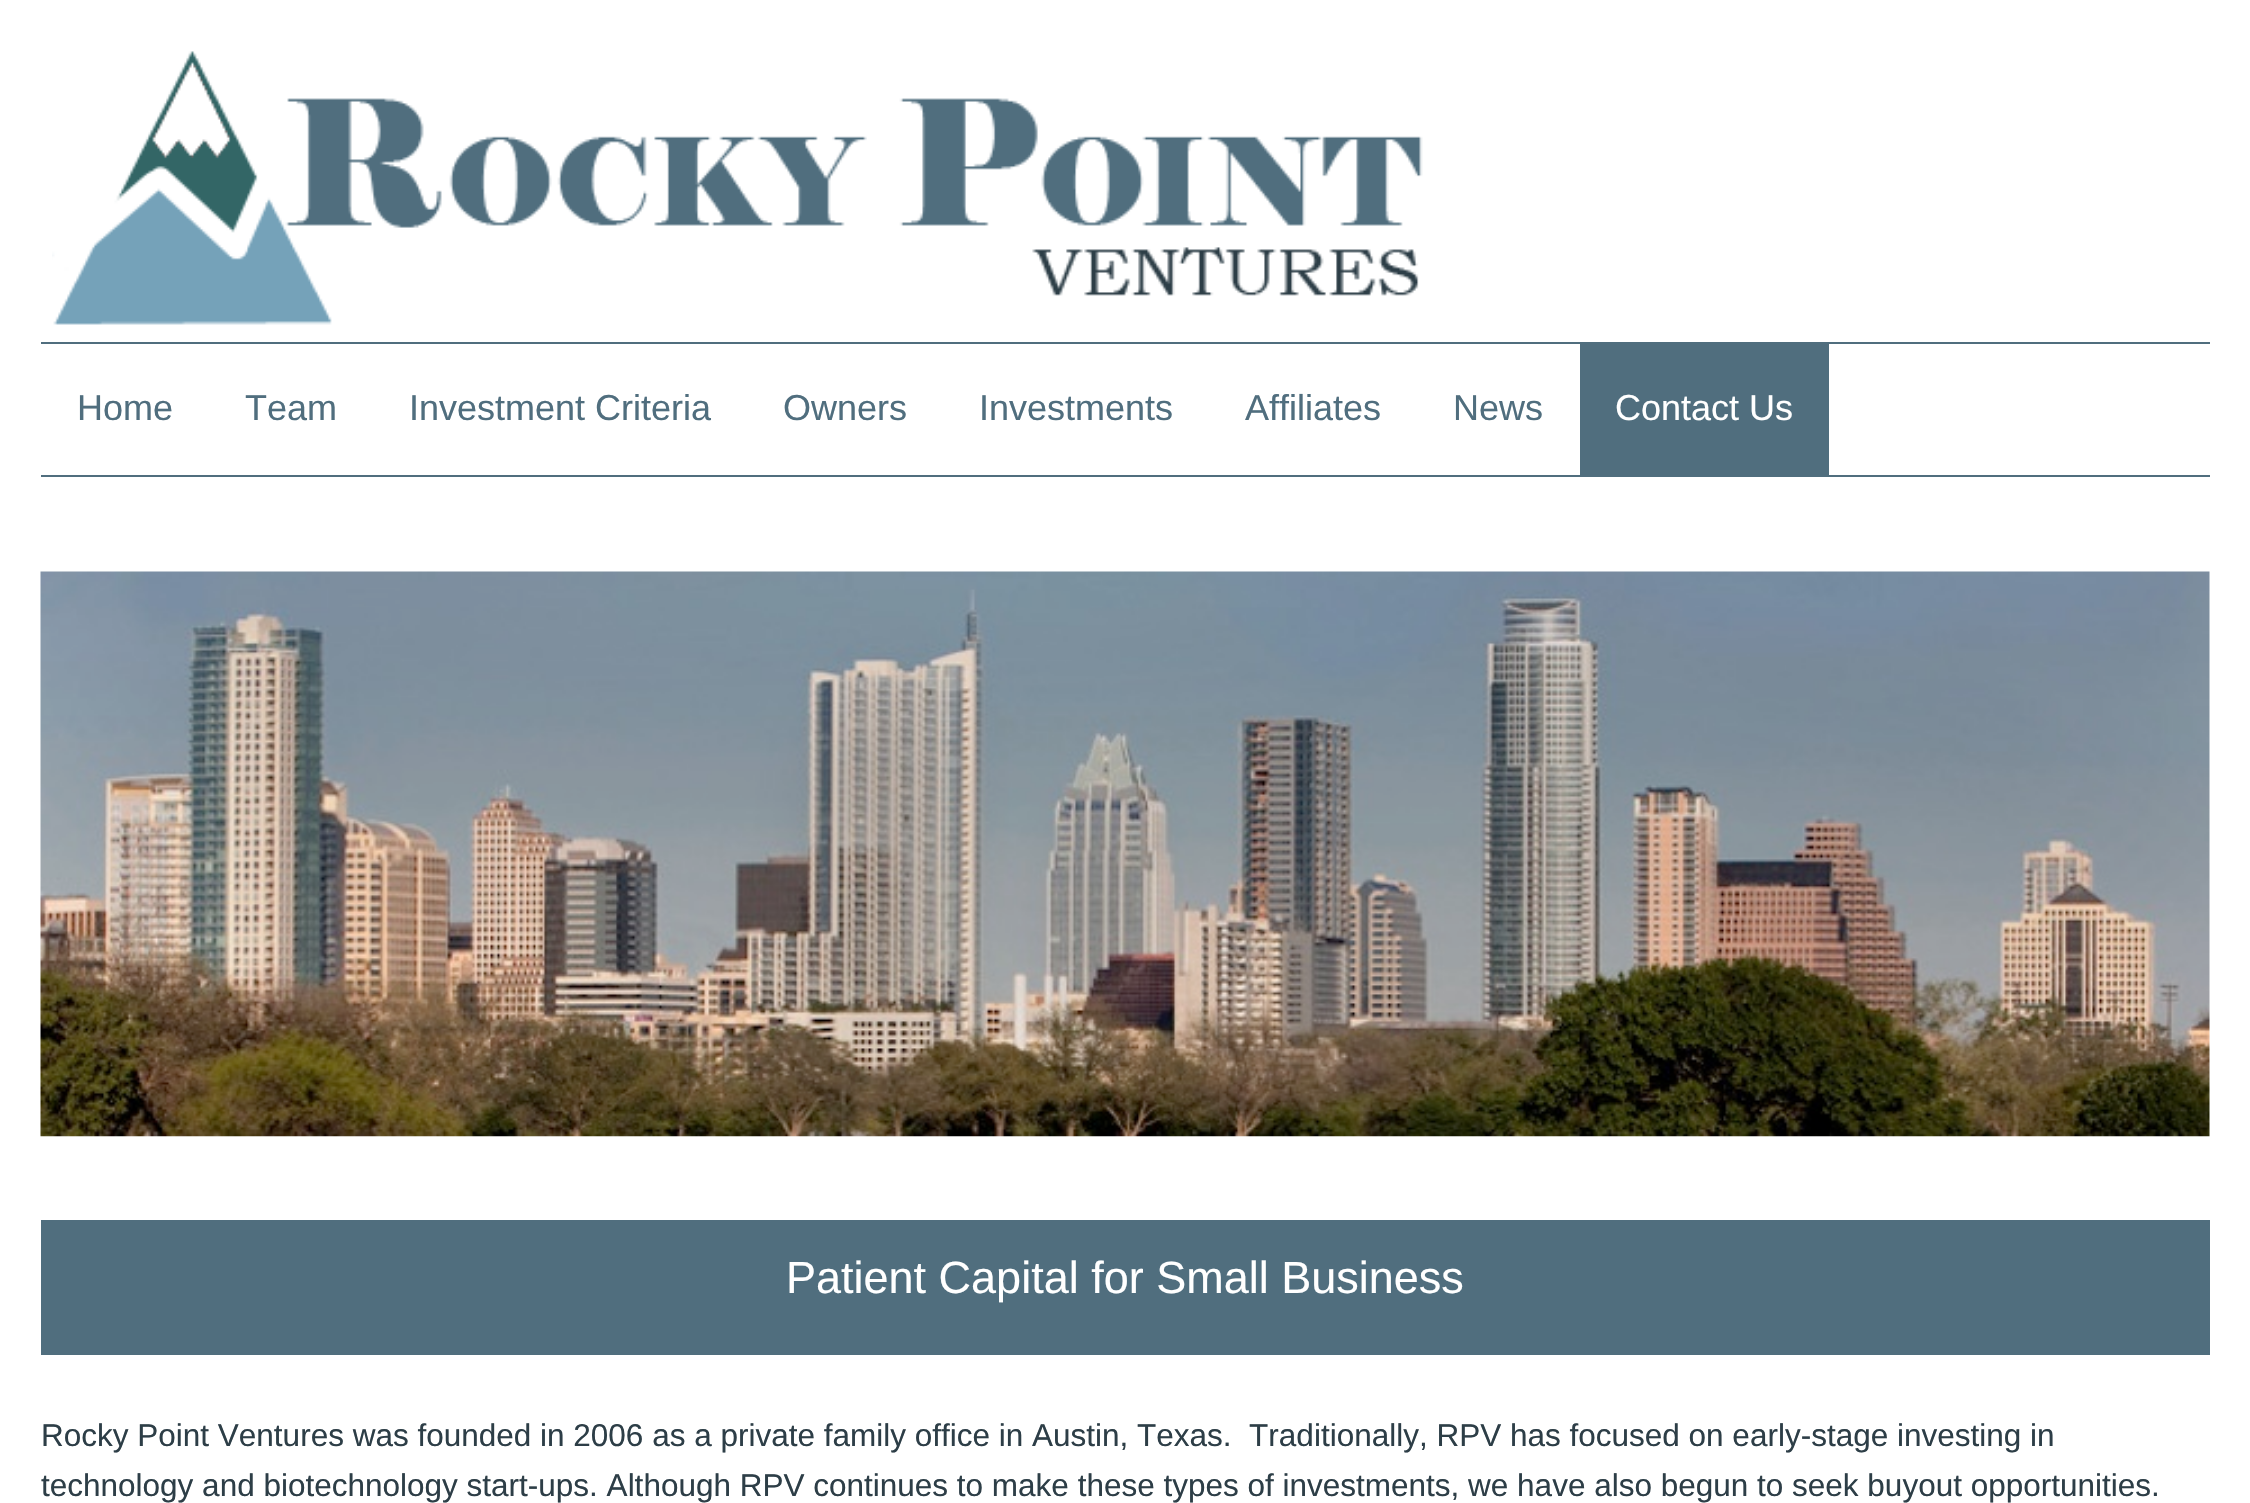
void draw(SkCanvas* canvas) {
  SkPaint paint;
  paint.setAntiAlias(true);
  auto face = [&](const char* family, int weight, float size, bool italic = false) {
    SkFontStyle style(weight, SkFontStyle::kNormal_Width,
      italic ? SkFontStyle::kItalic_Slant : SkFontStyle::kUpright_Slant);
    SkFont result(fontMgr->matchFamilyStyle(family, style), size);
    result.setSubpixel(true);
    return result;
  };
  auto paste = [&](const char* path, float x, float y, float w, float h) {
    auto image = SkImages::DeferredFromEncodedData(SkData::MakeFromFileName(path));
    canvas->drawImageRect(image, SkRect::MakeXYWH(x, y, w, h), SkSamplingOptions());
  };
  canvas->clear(0xffffffff);
  paste("img/1.png", 52, 51, 1371, 274);
  {
    const struct { float x, y, w, h; SkColor color; } items[] = {
      {41, 342, 2169, 2, 0xff506e7e},
      {41, 475, 2169, 2, 0xff506e7e},
      {1580, 344, 249, 131, 0xff506e7e},
    };
    for (auto [x, y, w, h, color] : items) {
      paint.setColor(color);
      canvas->drawRect(SkRect::MakeXYWH(x, y, w, h), paint);
    }
  }
  paste("img/2.png", 40, 571, 2170, 566);
  canvas->drawRect(SkRect::MakeXYWH(41, 1220, 2169, 135), paint);
  auto f0 = face("Liberation Sans", 400, 36);
  {
    const struct { const char* s; float x, y; } items[] = {
      {"Home", 77, 420},
      {"Team", 245, 420},
      {"Investment Criteria", 409, 420},
      {"Owners", 783, 420},
      {"Investments", 979, 420},
      {"Affiliates", 1245, 420},
      {"News", 1453, 420},
    };
    for (auto [s, x, y] : items) {
      canvas->drawString(s, x, y, f0, paint);
    }
  }
  paint.setColor(0xffffffff);
  canvas->drawString("Contact Us", 1615, 420, f0, paint);
  auto f1 = face("Liberation Sans", 400, 45);
  canvas->drawString("Patient Capital for Small Business", 786, 1293, f1, paint);
  auto f2 = face("Liberation Sans", 400, 31.5f);
  paint.setColor(0xff2d3e47);
  canvas->drawString("Rocky Point Ventures was founded in 2006 as a private family office in Austin, Texas.  Traditionally, RPV has focused on early-stage investing in", 41, 1446, f2, paint);
  canvas->drawString("technology and biotechnology start-ups. Although RPV continues to make these types of investments, we have also begun to seek buyout opportunities.", 41, 1496, f2, paint);
}
